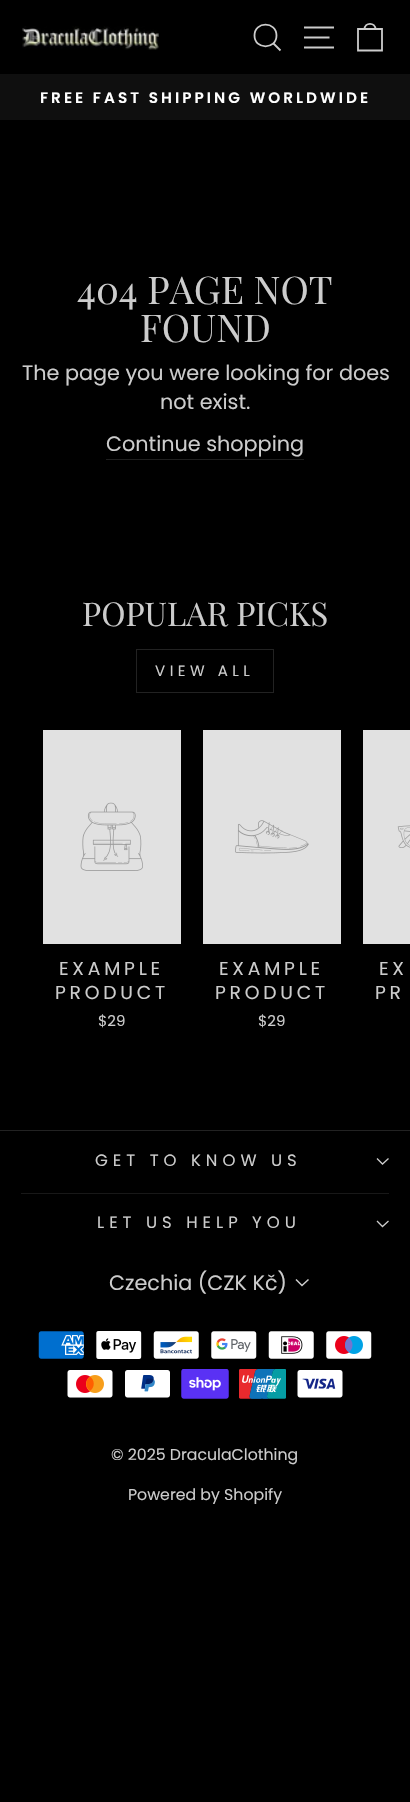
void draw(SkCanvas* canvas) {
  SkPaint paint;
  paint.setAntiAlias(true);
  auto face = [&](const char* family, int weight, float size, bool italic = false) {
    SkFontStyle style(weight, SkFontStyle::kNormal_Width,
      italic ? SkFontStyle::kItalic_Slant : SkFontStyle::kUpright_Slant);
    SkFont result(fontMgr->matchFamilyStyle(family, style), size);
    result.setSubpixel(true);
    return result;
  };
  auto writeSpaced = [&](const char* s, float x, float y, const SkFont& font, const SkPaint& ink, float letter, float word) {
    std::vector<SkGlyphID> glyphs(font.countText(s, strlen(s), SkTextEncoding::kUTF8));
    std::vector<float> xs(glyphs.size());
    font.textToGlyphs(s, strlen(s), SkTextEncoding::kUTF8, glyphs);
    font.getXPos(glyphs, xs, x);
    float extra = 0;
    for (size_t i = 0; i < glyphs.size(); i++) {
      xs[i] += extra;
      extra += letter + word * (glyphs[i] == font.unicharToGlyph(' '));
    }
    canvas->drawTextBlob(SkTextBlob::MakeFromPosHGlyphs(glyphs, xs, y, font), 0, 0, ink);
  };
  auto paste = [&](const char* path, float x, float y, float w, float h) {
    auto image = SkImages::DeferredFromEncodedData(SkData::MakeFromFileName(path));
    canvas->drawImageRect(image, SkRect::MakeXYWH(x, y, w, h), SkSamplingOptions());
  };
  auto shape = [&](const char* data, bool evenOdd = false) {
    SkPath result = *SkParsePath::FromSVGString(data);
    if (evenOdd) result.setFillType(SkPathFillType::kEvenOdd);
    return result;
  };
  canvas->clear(0xff000000);
  paste("img/1.png", 22, 26, 137, 24);
  paint.setStroke(true);
  paint.setStrokeWidth(1.8f);
  paint.setColor(0xffcccccc);
  canvas->drawPath(shape("M276.5 35.5C276.5 50 254.5 50 254.5 35.5C254.5 21 276.5 21 276.5 35.5ZM280.5 50.5L273.5 43.5"), paint);
  canvas->drawPath(shape("M304 27.5H334M304 37.5H329.5M304 47.5H334"), paint);
  canvas->drawPath(shape("M358 29H382V50.5H358ZM364.5 29.5C364.5 22 375.5 22 375.5 29.5"), paint);
  paint.setStroke(false);
  paint.setColor(0xff0f0f0f);
  canvas->drawRect(SkRect::MakeXYWH(0, 74, 410, 46), paint);
  paint.setColor(0xff1f1f1f);
  canvas->drawRect(SkRect::MakeXYWH(106, 459, 198, 1), paint);
  paint.setStroke(true);
  paint.setStrokeWidth(1);
  paint.setColor(0xff222222);
  canvas->drawRect(SkRect::MakeXYWH(136.5f, 649.5f, 137, 43), paint);
  paint.setStroke(false);
  paint.setColor(0xffe1e1e1);
  canvas->drawRect(SkRect::MakeXYWH(43, 730, 138, 214), paint);
  paste("img/2.png", 80, 802, 63, 69);
  canvas->drawRect(SkRect::MakeXYWH(203, 730, 138, 214), paint);
  paste("img/3.png", 235, 820, 74, 34);
  canvas->drawRect(SkRect::MakeXYWH(363, 730, 47, 214), paint);
  paste("img/4.png", 397, 825, 13, 23);
  paint.setColor(0xff222222);
  canvas->drawRect(SkRect::MakeXYWH(0, 1130, 410, 1), paint);
  paint.setStroke(true);
  paint.setStrokeWidth(1.3f);
  paint.setColor(0xffcccccc);
  canvas->drawPath(shape("M377 1158.5L382.5 1164L388.5 1158.5"), paint);
  paint.setStroke(false);
  paint.setColor(0xff181818);
  canvas->drawRect(SkRect::MakeXYWH(21, 1193, 368, 1), paint);
  paint.setStroke(true);
  paint.setColor(0xffcccccc);
  canvas->drawPath(shape("M377 1221L382.5 1226.5L388.5 1221"), paint);
  paint.setStrokeWidth(1.5f);
  canvas->drawPath(shape("M296 1279.5L302 1285.5L308.5 1279.5"), paint);
  paste("img/5.png", 38, 1331, 46, 28);
  paste("img/6.png", 96, 1331, 46, 28);
  paste("img/7.png", 153, 1331, 46, 28);
  paste("img/8.png", 211, 1331, 46, 28);
  paste("img/9.png", 268, 1331, 46, 28);
  paste("img/10.png", 326, 1331, 46, 28);
  paste("img/11.png", 67, 1370, 46, 28);
  paste("img/12.png", 125, 1370, 45, 28);
  paste("img/13.png", 181, 1369, 48, 30);
  paste("img/14.png", 239, 1369, 47, 30);
  paste("img/15.png", 297, 1370, 46, 28);
  auto f0 = face("Poppins", 600, 15.2f);
  paint.setStroke(false);
  paint.setColor(0xffffffff);
  writeSpaced("FREE FAST SHIPPING WORLDWIDE", 40, 103, f0, paint, 3.05f, 0);
  auto f1 = face("Playfair Display", 400, 38.25f);
  paint.setColor(0xffcccccc);
  canvas->drawString("404 PAGE NOT", 77, 304, f1, paint);
  canvas->drawString("FOUND", 140, 342, f1, paint);
  auto f2 = face("Poppins", 400, 20.75f);
  {
    const struct { const char* s; float x, y; } items[] = {
      {"The page you were looking for does", 22, 380},
      {"not exist.", 160, 409},
      {"Continue shopping", 106, 451},
    };
    for (auto [s, x, y] : items) {
      canvas->drawString(s, x, y, f2, paint);
    }
  }
  auto f3 = face("Playfair Display", 400, 32.75f);
  canvas->drawString("POPULAR PICKS", 82, 626, f3, paint);
  auto f4 = face("Poppins", 400, 15);
  writeSpaced("VIEW ALL", 155, 676, f4, paint, 4.5f, 0);
  auto f5 = face("Poppins", 400, 18.75f);
  writeSpaced("EXAMPLE", 59, 975, f5, paint, 3.75f, 0);
  writeSpaced("PRODUCT", 55, 999, f5, paint, 3.75f, 0);
  canvas->drawString("$29", 98, 1026, f4, paint);
  writeSpaced("EXAMPLE", 219, 975, f5, paint, 3.75f, 0);
  writeSpaced("PRODUCT", 215, 999, f5, paint, 3.75f, 0);
  canvas->drawString("$29", 258, 1026, f4, paint);
  writeSpaced("EX", 379, 975, f5, paint, 3.75f, 0);
  writeSpaced("PR", 375, 999, f5, paint, 3.75f, 0);
  auto f6 = face("Poppins", 400, 16.5f);
  writeSpaced("GET TO KNOW US", 95, 1166, f6, paint, 5, 0);
  writeSpaced("LET US HELP YOU", 97, 1228, f6, paint, 5, 0);
  canvas->drawString("Czechia (CZK Kč)", 109, 1290, f2, paint);
  auto f7 = face("Poppins", 400, 15.75f);
  canvas->drawString("© 2025 DraculaClothing", 111, 1460, f7, paint);
  canvas->drawString("Powered by Shopify", 128, 1500, f7, paint);
}
